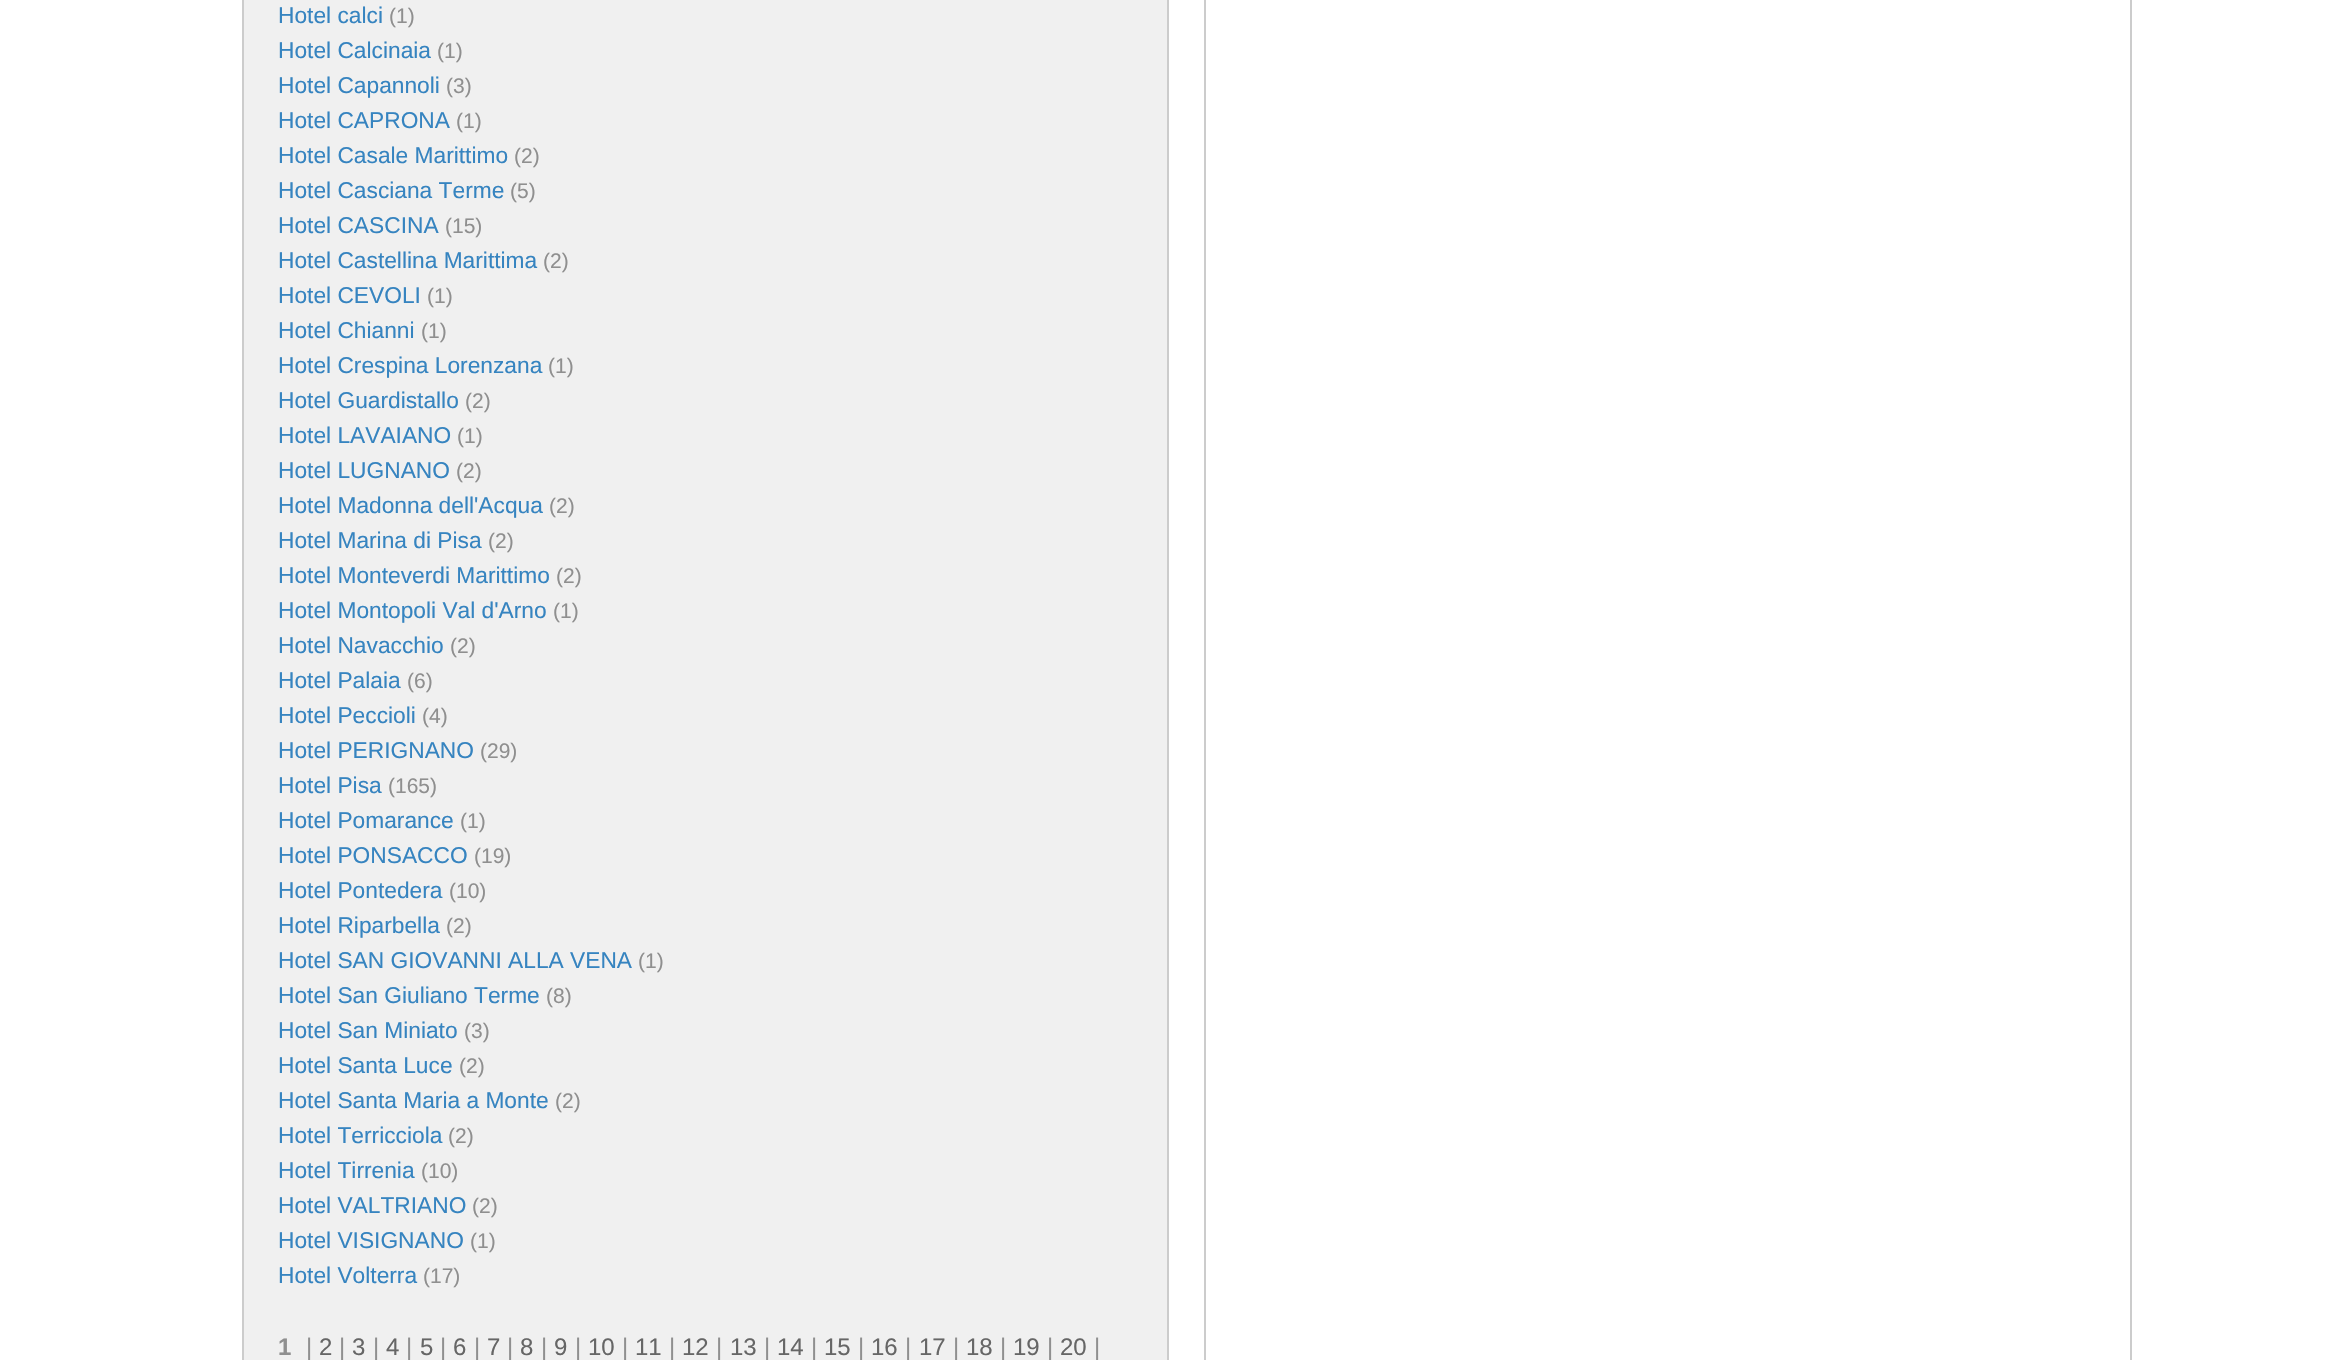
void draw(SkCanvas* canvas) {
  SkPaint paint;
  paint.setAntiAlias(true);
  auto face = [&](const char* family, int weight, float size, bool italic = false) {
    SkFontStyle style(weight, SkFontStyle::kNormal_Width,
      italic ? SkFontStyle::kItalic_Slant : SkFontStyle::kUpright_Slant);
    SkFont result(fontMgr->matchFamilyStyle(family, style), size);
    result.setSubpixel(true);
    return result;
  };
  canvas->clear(0xffffffff);
  paint.setColor(0xfff0f0f0);
  canvas->drawRect(SkRect::MakeXYWH(243, -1, 925, 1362), paint);
  paint.setStroke(true);
  paint.setStrokeWidth(2);
  paint.setColor(0xffcccccc);
  canvas->drawRect(SkRect::MakeXYWH(243, -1, 925, 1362), paint);
  canvas->drawRect(SkRect::MakeXYWH(1205, -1, 926, 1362), paint);
  auto f0 = face("Liberation Sans", 400, 22.75f);
  paint.setStroke(false);
  paint.setColor(0xff3684c0);
  canvas->drawString("Hotel calci", 278, 23, f0, paint);
  auto f1 = face("Liberation Sans", 400, 21);
  paint.setColor(0xff8f8f8f);
  canvas->drawString("(1)", 389, 23, f1, paint);
  paint.setColor(0xff3684c0);
  canvas->drawString("Hotel Calcinaia", 278, 58, f0, paint);
  paint.setColor(0xff8f8f8f);
  canvas->drawString("(1)", 437, 58, f1, paint);
  paint.setColor(0xff3684c0);
  canvas->drawString("Hotel Capannoli", 278, 93, f0, paint);
  paint.setColor(0xff8f8f8f);
  canvas->drawString("(3)", 446, 93, f1, paint);
  paint.setColor(0xff3684c0);
  canvas->drawString("Hotel CAPRONA", 278, 128, f0, paint);
  paint.setColor(0xff8f8f8f);
  canvas->drawString("(1)", 456, 128, f1, paint);
  paint.setColor(0xff3684c0);
  canvas->drawString("Hotel Casale Marittimo", 278, 163, f0, paint);
  paint.setColor(0xff8f8f8f);
  canvas->drawString("(2)", 514, 163, f1, paint);
  paint.setColor(0xff3684c0);
  canvas->drawString("Hotel Casciana Terme", 278, 198, f0, paint);
  paint.setColor(0xff8f8f8f);
  canvas->drawString("(5)", 510, 198, f1, paint);
  paint.setColor(0xff3684c0);
  canvas->drawString("Hotel CASCINA", 278, 233, f0, paint);
  paint.setColor(0xff8f8f8f);
  canvas->drawString("(15)", 445, 233, f1, paint);
  paint.setColor(0xff3684c0);
  canvas->drawString("Hotel Castellina Marittima", 278, 268, f0, paint);
  paint.setColor(0xff8f8f8f);
  canvas->drawString("(2)", 543, 268, f1, paint);
  paint.setColor(0xff3684c0);
  canvas->drawString("Hotel CEVOLI", 278, 303, f0, paint);
  paint.setColor(0xff8f8f8f);
  canvas->drawString("(1)", 427, 303, f1, paint);
  paint.setColor(0xff3684c0);
  canvas->drawString("Hotel Chianni", 278, 338, f0, paint);
  paint.setColor(0xff8f8f8f);
  canvas->drawString("(1)", 421, 338, f1, paint);
  paint.setColor(0xff3684c0);
  canvas->drawString("Hotel Crespina Lorenzana", 278, 373, f0, paint);
  paint.setColor(0xff8f8f8f);
  canvas->drawString("(1)", 548, 373, f1, paint);
  paint.setColor(0xff3684c0);
  canvas->drawString("Hotel Guardistallo", 278, 408, f0, paint);
  paint.setColor(0xff8f8f8f);
  canvas->drawString("(2)", 465, 408, f1, paint);
  paint.setColor(0xff3684c0);
  canvas->drawString("Hotel LAVAIANO", 278, 443, f0, paint);
  paint.setColor(0xff8f8f8f);
  canvas->drawString("(1)", 457, 443, f1, paint);
  paint.setColor(0xff3684c0);
  canvas->drawString("Hotel LUGNANO", 278, 478, f0, paint);
  paint.setColor(0xff8f8f8f);
  canvas->drawString("(2)", 456, 478, f1, paint);
  paint.setColor(0xff3684c0);
  canvas->drawString("Hotel Madonna dell'Acqua", 278, 513, f0, paint);
  paint.setColor(0xff8f8f8f);
  canvas->drawString("(2)", 549, 513, f1, paint);
  paint.setColor(0xff3684c0);
  canvas->drawString("Hotel Marina di Pisa", 278, 548, f0, paint);
  paint.setColor(0xff8f8f8f);
  canvas->drawString("(2)", 488, 548, f1, paint);
  paint.setColor(0xff3684c0);
  canvas->drawString("Hotel Monteverdi Marittimo", 278, 583, f0, paint);
  paint.setColor(0xff8f8f8f);
  canvas->drawString("(2)", 556, 583, f1, paint);
  paint.setColor(0xff3684c0);
  canvas->drawString("Hotel Montopoli Val d'Arno", 278, 618, f0, paint);
  paint.setColor(0xff8f8f8f);
  canvas->drawString("(1)", 553, 618, f1, paint);
  paint.setColor(0xff3684c0);
  canvas->drawString("Hotel Navacchio", 278, 653, f0, paint);
  paint.setColor(0xff8f8f8f);
  canvas->drawString("(2)", 450, 653, f1, paint);
  paint.setColor(0xff3684c0);
  canvas->drawString("Hotel Palaia", 278, 688, f0, paint);
  paint.setColor(0xff8f8f8f);
  canvas->drawString("(6)", 407, 688, f1, paint);
  paint.setColor(0xff3684c0);
  canvas->drawString("Hotel Peccioli", 278, 723, f0, paint);
  paint.setColor(0xff8f8f8f);
  canvas->drawString("(4)", 422, 723, f1, paint);
  paint.setColor(0xff3684c0);
  canvas->drawString("Hotel PERIGNANO", 278, 758, f0, paint);
  paint.setColor(0xff8f8f8f);
  canvas->drawString("(29)", 480, 758, f1, paint);
  paint.setColor(0xff3684c0);
  canvas->drawString("Hotel Pisa", 278, 793, f0, paint);
  paint.setColor(0xff8f8f8f);
  canvas->drawString("(165)", 388, 793, f1, paint);
  paint.setColor(0xff3684c0);
  canvas->drawString("Hotel Pomarance", 278, 828, f0, paint);
  paint.setColor(0xff8f8f8f);
  canvas->drawString("(1)", 460, 828, f1, paint);
  paint.setColor(0xff3684c0);
  canvas->drawString("Hotel PONSACCO", 278, 863, f0, paint);
  paint.setColor(0xff8f8f8f);
  canvas->drawString("(19)", 474, 863, f1, paint);
  paint.setColor(0xff3684c0);
  canvas->drawString("Hotel Pontedera", 278, 898, f0, paint);
  paint.setColor(0xff8f8f8f);
  canvas->drawString("(10)", 449, 898, f1, paint);
  paint.setColor(0xff3684c0);
  canvas->drawString("Hotel Riparbella", 278, 933, f0, paint);
  paint.setColor(0xff8f8f8f);
  canvas->drawString("(2)", 446, 933, f1, paint);
  paint.setColor(0xff3684c0);
  canvas->drawString("Hotel SAN GIOVANNI ALLA VENA", 278, 968, f0, paint);
  paint.setColor(0xff8f8f8f);
  canvas->drawString("(1)", 638, 968, f1, paint);
  paint.setColor(0xff3684c0);
  canvas->drawString("Hotel San Giuliano Terme", 278, 1003, f0, paint);
  paint.setColor(0xff8f8f8f);
  canvas->drawString("(8)", 546, 1003, f1, paint);
  paint.setColor(0xff3684c0);
  canvas->drawString("Hotel San Miniato", 278, 1038, f0, paint);
  paint.setColor(0xff8f8f8f);
  canvas->drawString("(3)", 464, 1038, f1, paint);
  paint.setColor(0xff3684c0);
  canvas->drawString("Hotel Santa Luce", 278, 1073, f0, paint);
  paint.setColor(0xff8f8f8f);
  canvas->drawString("(2)", 459, 1073, f1, paint);
  paint.setColor(0xff3684c0);
  canvas->drawString("Hotel Santa Maria a Monte", 278, 1108, f0, paint);
  paint.setColor(0xff8f8f8f);
  canvas->drawString("(2)", 555, 1108, f1, paint);
  paint.setColor(0xff3684c0);
  canvas->drawString("Hotel Terricciola", 278, 1143, f0, paint);
  paint.setColor(0xff8f8f8f);
  canvas->drawString("(2)", 448, 1143, f1, paint);
  paint.setColor(0xff3684c0);
  canvas->drawString("Hotel Tirrenia", 278, 1178, f0, paint);
  paint.setColor(0xff8f8f8f);
  canvas->drawString("(10)", 421, 1178, f1, paint);
  paint.setColor(0xff3684c0);
  canvas->drawString("Hotel VALTRIANO", 278, 1213, f0, paint);
  paint.setColor(0xff8f8f8f);
  canvas->drawString("(2)", 472, 1213, f1, paint);
  paint.setColor(0xff3684c0);
  canvas->drawString("Hotel VISIGNANO", 278, 1248, f0, paint);
  paint.setColor(0xff8f8f8f);
  canvas->drawString("(1)", 470, 1248, f1, paint);
  paint.setColor(0xff3684c0);
  canvas->drawString("Hotel Volterra", 278, 1283, f0, paint);
  paint.setColor(0xff8f8f8f);
  canvas->drawString("(17)", 423, 1283, f1, paint);
  auto f2 = face("Liberation Sans", 700, 24);
  canvas->drawString("1", 278, 1355, f2, paint);
  auto f3 = face("Liberation Sans", 400, 24);
  canvas->drawString("|", 306, 1355, f3, paint);
  paint.setColor(0xff666666);
  canvas->drawString("2", 319, 1355, f3, paint);
  paint.setColor(0xff8f8f8f);
  canvas->drawString("|", 339, 1355, f3, paint);
  paint.setColor(0xff666666);
  canvas->drawString("3", 352, 1355, f3, paint);
  paint.setColor(0xff8f8f8f);
  canvas->drawString("|", 373, 1355, f3, paint);
  paint.setColor(0xff666666);
  canvas->drawString("4", 386, 1355, f3, paint);
  paint.setColor(0xff8f8f8f);
  canvas->drawString("|", 406, 1355, f3, paint);
  paint.setColor(0xff666666);
  canvas->drawString("5", 420, 1355, f3, paint);
  paint.setColor(0xff8f8f8f);
  canvas->drawString("|", 440, 1355, f3, paint);
  paint.setColor(0xff666666);
  canvas->drawString("6", 453, 1355, f3, paint);
  paint.setColor(0xff8f8f8f);
  canvas->drawString("|", 474, 1355, f3, paint);
  paint.setColor(0xff666666);
  canvas->drawString("7", 487, 1355, f3, paint);
  paint.setColor(0xff8f8f8f);
  canvas->drawString("|", 507, 1355, f3, paint);
  paint.setColor(0xff666666);
  canvas->drawString("8", 520, 1355, f3, paint);
  paint.setColor(0xff8f8f8f);
  canvas->drawString("|", 541, 1355, f3, paint);
  paint.setColor(0xff666666);
  canvas->drawString("9", 554, 1355, f3, paint);
  paint.setColor(0xff8f8f8f);
  canvas->drawString("|", 575, 1355, f3, paint);
  paint.setColor(0xff666666);
  canvas->drawString("10", 588, 1355, f3, paint);
  paint.setColor(0xff8f8f8f);
  canvas->drawString("|", 622, 1355, f3, paint);
  paint.setColor(0xff666666);
  canvas->drawString("11", 635, 1355, f3, paint);
  paint.setColor(0xff8f8f8f);
  canvas->drawString("|", 669, 1355, f3, paint);
  paint.setColor(0xff666666);
  canvas->drawString("12", 682, 1355, f3, paint);
  paint.setColor(0xff8f8f8f);
  canvas->drawString("|", 716, 1355, f3, paint);
  paint.setColor(0xff666666);
  canvas->drawString("13", 730, 1355, f3, paint);
  paint.setColor(0xff8f8f8f);
  canvas->drawString("|", 764, 1355, f3, paint);
  paint.setColor(0xff666666);
  canvas->drawString("14", 777, 1355, f3, paint);
  paint.setColor(0xff8f8f8f);
  canvas->drawString("|", 811, 1355, f3, paint);
  paint.setColor(0xff666666);
  canvas->drawString("15", 824, 1355, f3, paint);
  paint.setColor(0xff8f8f8f);
  canvas->drawString("|", 858, 1355, f3, paint);
  paint.setColor(0xff666666);
  canvas->drawString("16", 871, 1355, f3, paint);
  paint.setColor(0xff8f8f8f);
  canvas->drawString("|", 905, 1355, f3, paint);
  paint.setColor(0xff666666);
  canvas->drawString("17", 919, 1355, f3, paint);
  paint.setColor(0xff8f8f8f);
  canvas->drawString("|", 953, 1355, f3, paint);
  paint.setColor(0xff666666);
  canvas->drawString("18", 966, 1355, f3, paint);
  paint.setColor(0xff8f8f8f);
  canvas->drawString("|", 1000, 1355, f3, paint);
  paint.setColor(0xff666666);
  canvas->drawString("19", 1013, 1355, f3, paint);
  paint.setColor(0xff8f8f8f);
  canvas->drawString("|", 1047, 1355, f3, paint);
  paint.setColor(0xff666666);
  canvas->drawString("20", 1060, 1355, f3, paint);
  paint.setColor(0xff8f8f8f);
  canvas->drawString("|", 1094, 1355, f3, paint);
}
